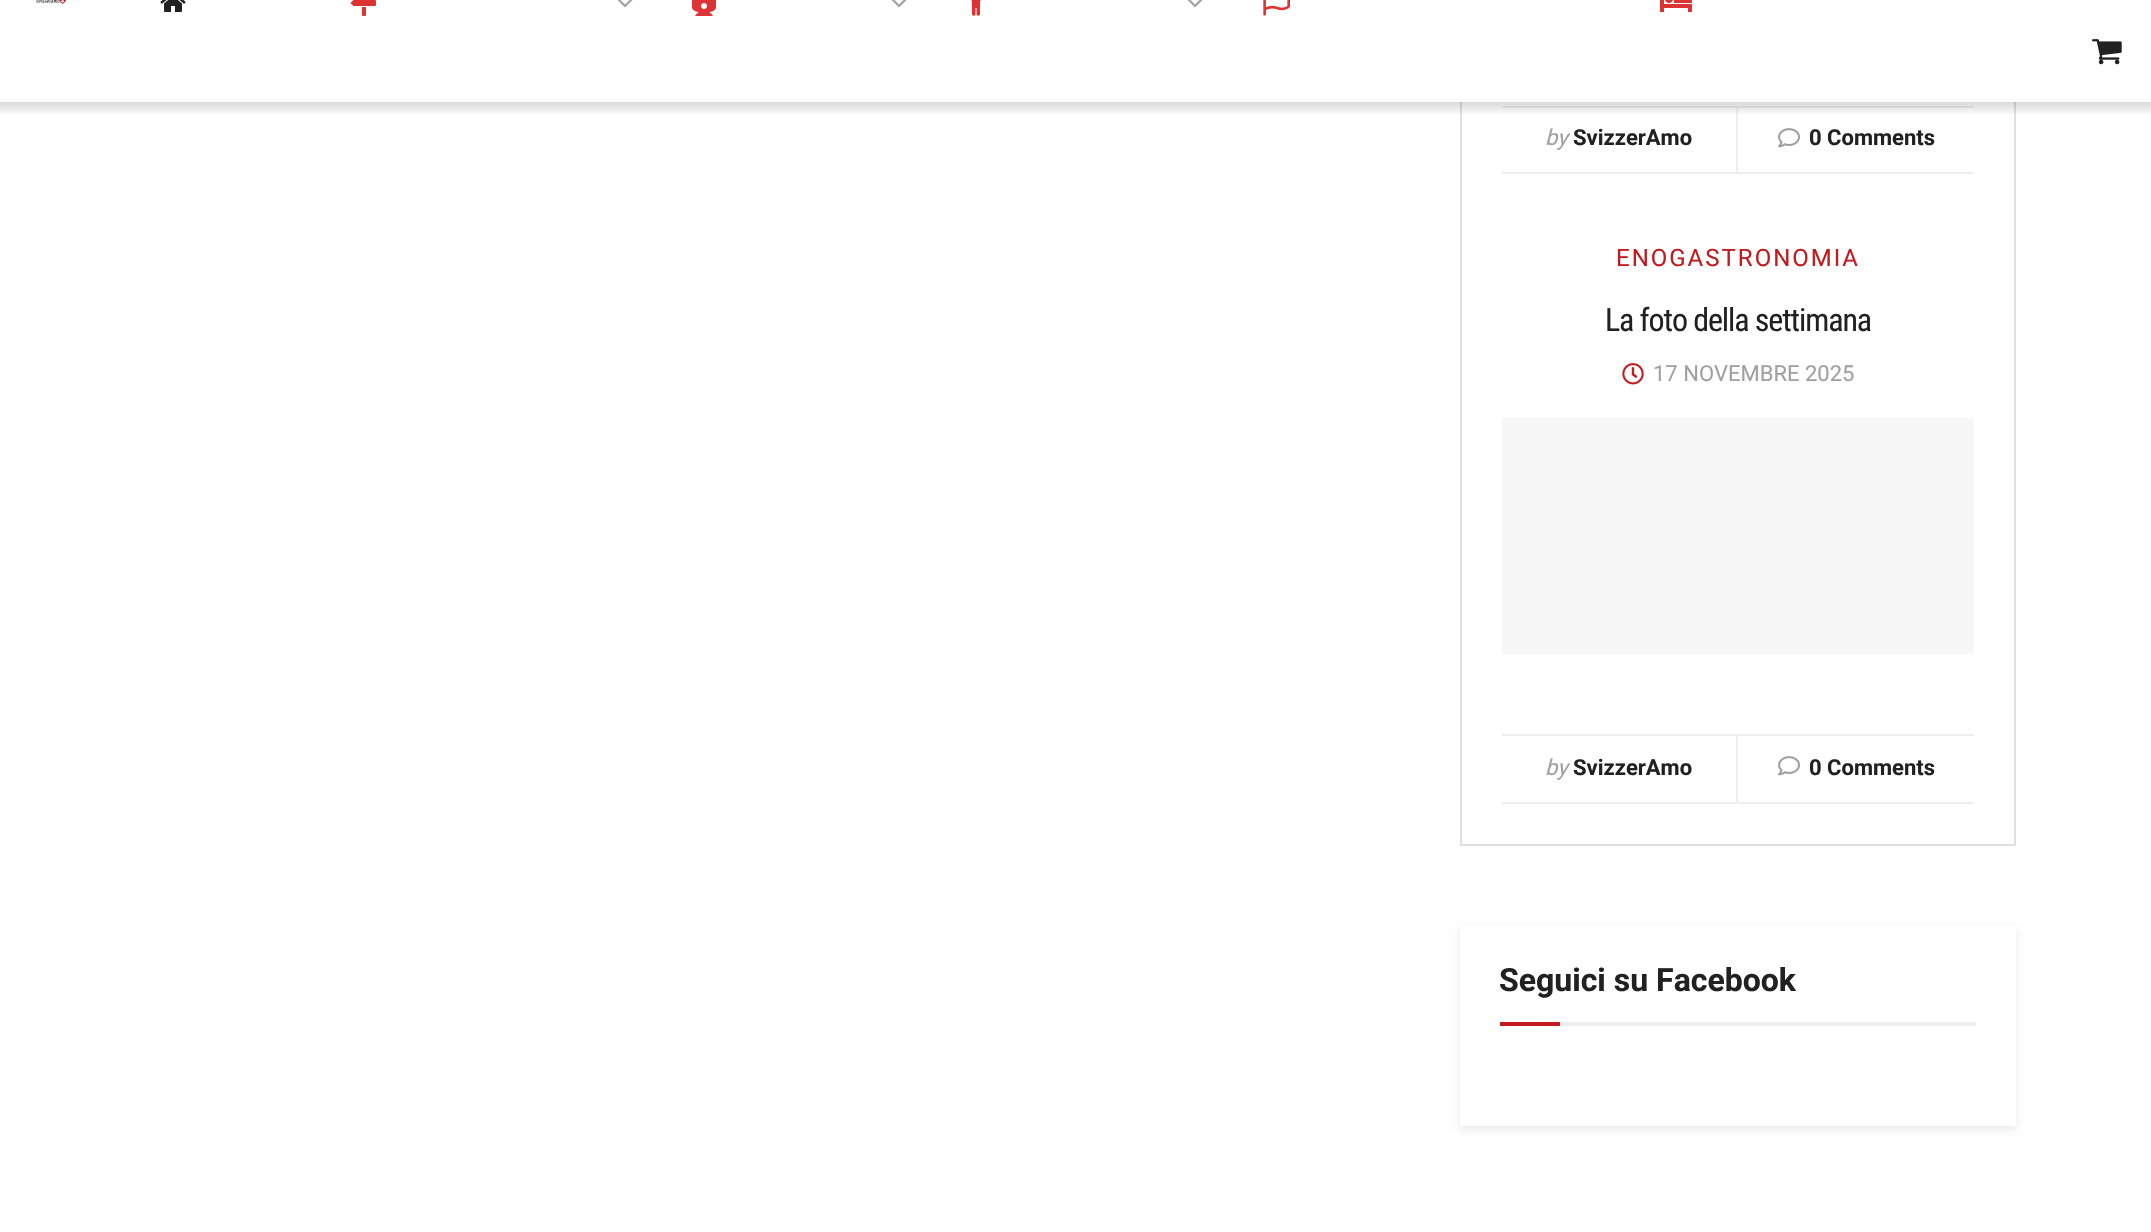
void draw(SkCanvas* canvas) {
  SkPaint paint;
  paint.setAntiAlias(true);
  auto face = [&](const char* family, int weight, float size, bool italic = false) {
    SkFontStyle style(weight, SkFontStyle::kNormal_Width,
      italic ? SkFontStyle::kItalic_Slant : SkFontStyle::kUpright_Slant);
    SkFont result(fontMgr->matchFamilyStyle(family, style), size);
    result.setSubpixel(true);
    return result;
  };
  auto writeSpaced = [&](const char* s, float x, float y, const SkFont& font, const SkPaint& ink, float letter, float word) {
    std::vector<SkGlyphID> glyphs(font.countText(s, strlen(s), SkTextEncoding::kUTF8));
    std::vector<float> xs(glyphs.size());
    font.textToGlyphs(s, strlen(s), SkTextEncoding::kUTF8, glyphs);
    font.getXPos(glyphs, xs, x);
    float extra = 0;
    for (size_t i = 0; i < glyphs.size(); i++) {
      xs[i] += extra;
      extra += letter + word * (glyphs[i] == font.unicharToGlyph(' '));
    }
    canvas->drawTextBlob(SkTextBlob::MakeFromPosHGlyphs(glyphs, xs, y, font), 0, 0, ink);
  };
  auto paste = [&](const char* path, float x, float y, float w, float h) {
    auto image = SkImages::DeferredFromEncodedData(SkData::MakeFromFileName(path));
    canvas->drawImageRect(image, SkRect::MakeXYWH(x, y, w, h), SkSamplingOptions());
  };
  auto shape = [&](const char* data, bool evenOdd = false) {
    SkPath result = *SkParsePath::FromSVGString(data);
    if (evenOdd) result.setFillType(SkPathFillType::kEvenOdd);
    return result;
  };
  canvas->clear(0xffffffff);
  paint.setStroke(true);
  paint.setStrokeWidth(2);
  paint.setColor(0xffe0e0e0);
  canvas->drawRect(SkRect::MakeXYWH(1461, -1, 554, 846), paint);
  paint.setStroke(false);
  paint.setColor(0xffffffff);
  canvas->drawRect(SkRect::MakeXYWH(1460, 0, 556, 102), paint);
  paste("img/1.png", 35, 0, 31, 4);
  paste("img/2.png", 160, 0, 26, 12);
  paste("img/3.png", 350, 0, 26, 16);
  paste("img/4.png", 617, 0, 16, 8);
  paste("img/5.png", 692, 0, 24, 16);
  paste("img/4.png", 891, 0, 16, 8);
  paste("img/6.png", 971, 0, 10, 16);
  paste("img/4.png", 1187, 0, 16, 8);
  paste("img/7.png", 1263, 0, 27, 16);
  paste("img/8.png", 1660, 0, 32, 12);
  paste("img/9.png", 2092, 39, 30, 26);
  paint.setColor(0xffeeeeee);
  canvas->drawRect(SkRect::MakeXYWH(1502, 106, 472, 2), paint);
  canvas->drawRect(SkRect::MakeXYWH(1736, 108, 2, 64), paint);
  {
    const SkColor colors[] = {0x26000000, 0x00000000};
    const float stops[] = {0, 1};
    const SkPoint ends[] = {{1076, 102}, {1076, 116}};
    paint.setShader(SkGradientShader::MakeLinear(ends, colors, stops, 2, SkTileMode::kClamp));
    paint.setAlpha(255);
  }
  canvas->drawRect(SkRect::MakeXYWH(0, 102, 2151, 12), paint);
  paint.setShader(nullptr);
  paint.setColor(0xffeeeeee);
  canvas->drawRect(SkRect::MakeXYWH(1502, 172, 472, 2), paint);
  paste("img/10.png", 1778, 128, 22, 20);
  canvas->drawRect(SkRect::MakeXYWH(1502, 802, 472, 2), paint);
  paste("img/11.png", 1622, 363, 22, 22);
  {
    const struct { float x, y, w, h; SkColor color; } items[] = {
      {1502, 418, 472, 236, 0xfff7f7f7},
      {1502, 734, 472, 2, 0xffeeeeee},
      {1736, 736, 2, 66, 0xffeeeeee},
    };
    for (auto [x, y, w, h, color] : items) {
      paint.setColor(color);
      canvas->drawRect(SkRect::MakeXYWH(x, y, w, h), paint);
    }
  }
  paste("img/10.png", 1778, 756, 22, 20);
  canvas->save();
  canvas->clipPath(shape("M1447 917H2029V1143H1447ZM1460 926H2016V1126H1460Z", true), true);
  paint.setColor(0x14000000);
  paint.setMaskFilter(SkMaskFilter::MakeBlur(kNormal_SkBlurStyle, 4));
  canvas->drawRect(SkRect::MakeXYWH(1460, 930, 556, 200), paint);
  paint.setMaskFilter(nullptr);
  canvas->restore();
  paint.setColor(0xffeeeeee);
  canvas->drawRect(SkRect::MakeXYWH(1560, 1022, 416, 4), paint);
  paint.setColor(0xffc31a1f);
  canvas->drawRect(SkRect::MakeXYWH(1500, 1022, 60, 4), paint);
  auto f0 = face("Roboto", 400, 22, true);
  paint.setColor(0xffa0a0a0);
  canvas->drawString("by", 1545, 145, f0, paint);
  auto f1 = face("Roboto", 700, 22);
  paint.setColor(0xff212121);
  canvas->drawString("SvizzerAmo", 1573, 145, f1, paint);
  canvas->drawString("0 Comments", 1809, 145, f1, paint);
  auto f2 = face("Roboto", 400, 24);
  paint.setColor(0xffc31a1f);
  writeSpaced("ENOGASTRONOMIA", 1616, 266, f2, paint, 2, 0);
  auto f3 = face("Roboto Condensed", 400, 32);
  paint.setColor(0xff212121);
  writeSpaced("La foto della settimana", 1605, 331, f3, paint, -1.1f, 0);
  auto f4 = face("Roboto", 400, 22);
  paint.setColor(0xffa0a0a0);
  canvas->drawString("17 NOVEMBRE 2025", 1653, 381, f4, paint);
  canvas->drawString("by", 1545, 775, f0, paint);
  paint.setColor(0xff212121);
  canvas->drawString("SvizzerAmo", 1573, 775, f1, paint);
  canvas->drawString("0 Comments", 1809, 775, f1, paint);
  auto f5 = face("Roboto", 700, 32);
  canvas->drawString("Seguici su Facebook", 1499, 991, f5, paint);
}
